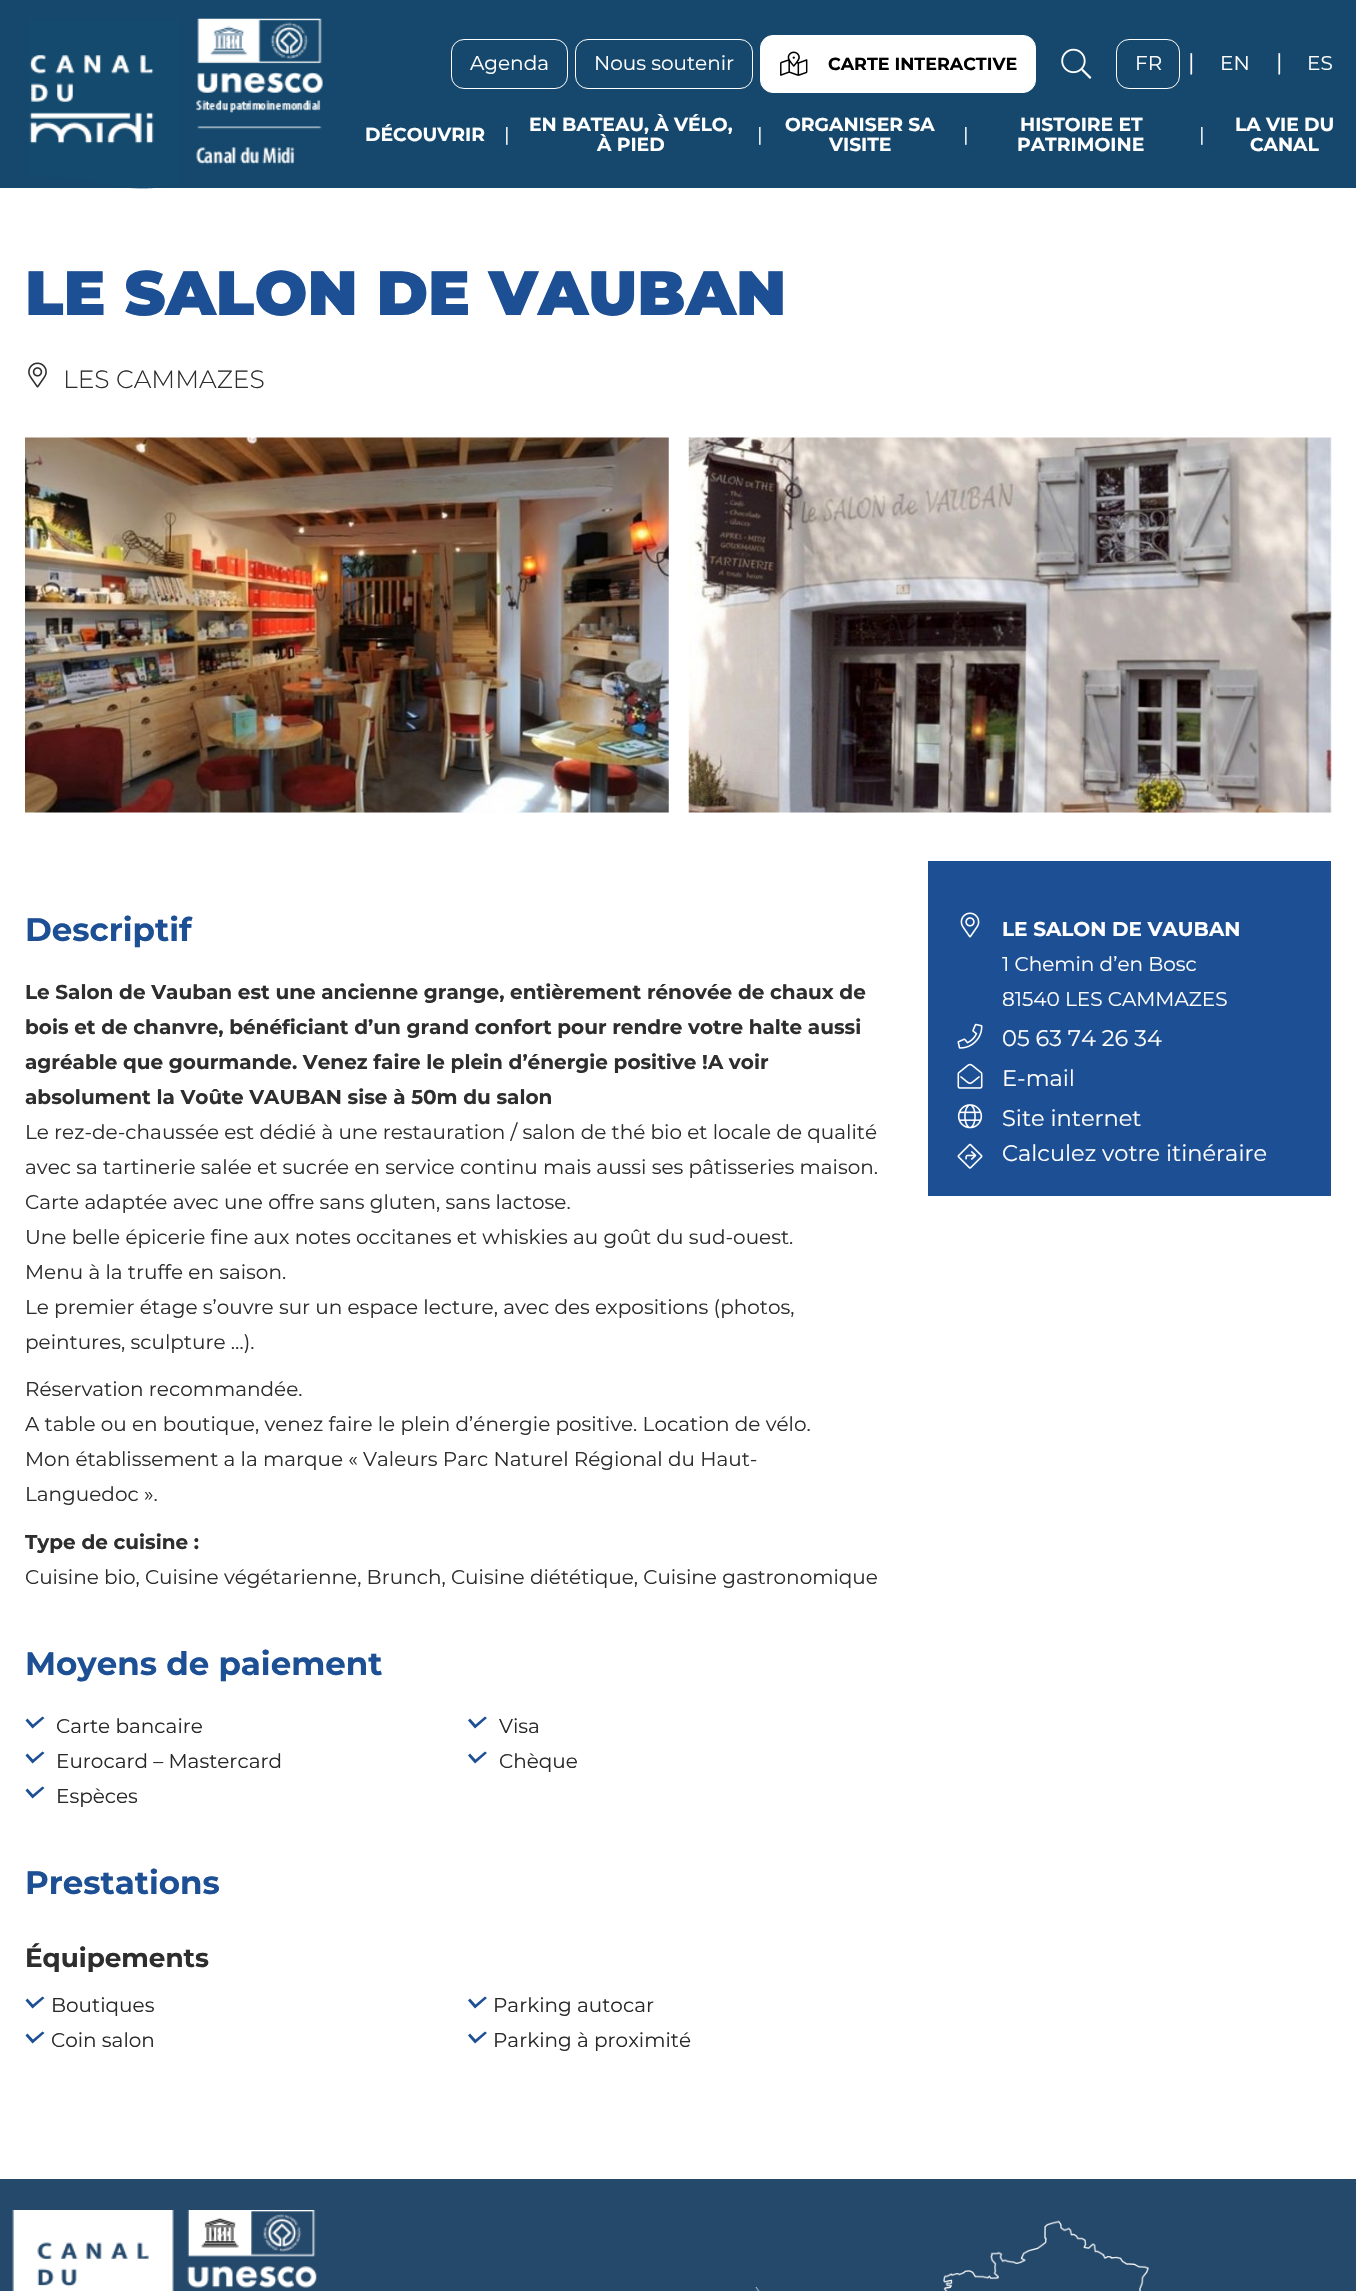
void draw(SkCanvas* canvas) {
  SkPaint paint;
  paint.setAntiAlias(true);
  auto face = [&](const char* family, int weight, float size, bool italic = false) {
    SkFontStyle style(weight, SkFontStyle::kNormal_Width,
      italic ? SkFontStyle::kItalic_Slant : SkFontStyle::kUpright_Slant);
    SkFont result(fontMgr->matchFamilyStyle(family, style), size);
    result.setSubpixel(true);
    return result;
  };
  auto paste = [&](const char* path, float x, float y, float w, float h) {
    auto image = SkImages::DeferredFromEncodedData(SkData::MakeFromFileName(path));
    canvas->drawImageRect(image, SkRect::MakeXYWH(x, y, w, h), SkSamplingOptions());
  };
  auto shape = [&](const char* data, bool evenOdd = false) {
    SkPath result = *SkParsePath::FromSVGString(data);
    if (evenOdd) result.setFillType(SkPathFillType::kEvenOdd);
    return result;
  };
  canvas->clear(0xffffffff);
  paint.setColor(0xff15486c);
  canvas->drawRect(SkRect::MakeXYWH(0, 0, 1356, 188), paint);
  paste("img/1.png", 29, 18, 294, 171);
  paint.setStroke(true);
  paint.setStrokeWidth(1);
  paint.setColor(0xffffffff);
  canvas->drawRoundRect(SkRect::MakeXYWH(451.5f, 39.5f, 116, 49), 12.5f, 12.5f, paint);
  canvas->drawRoundRect(SkRect::MakeXYWH(575.5f, 39.5f, 177, 49), 12.5f, 12.5f, paint);
  paint.setStroke(false);
  canvas->drawRoundRect(SkRect::MakeXYWH(760.5f, 35.5f, 275, 57), 12.5f, 12.5f, paint);
  paint.setStroke(true);
  canvas->drawRoundRect(SkRect::MakeXYWH(760.5f, 35.5f, 275, 57), 12.5f, 12.5f, paint);
  paste("img/2.png", 780, 51, 28, 25);
  paste("img/3.png", 1061, 48, 31, 31);
  canvas->drawRoundRect(SkRect::MakeXYWH(1116.5f, 39.5f, 63, 49), 12.5f, 12.5f, paint);
  paste("img/4.png", 28, 362, 19, 26);
  paste("img/5.png", 25, 437, 644, 376);
  paste("img/6.png", 688, 437, 644, 376);
  paint.setStroke(false);
  paint.setColor(0xff1d4f94);
  canvas->drawPath(shape("M27.5 1718.5L33 1724.5L42.5 1716.5L44.5 1718L32.5 1728.5L25.5 1720.5Z"), paint);
  canvas->drawPath(shape("M470 1718.5L475.5 1724.5L485 1716.5L487 1718L475 1728.5L468 1720.5Z"), paint);
  canvas->drawPath(shape("M27.5 1753.5L33 1759.5L42.5 1751.5L44.5 1753L32.5 1763.5L25.5 1755.5Z"), paint);
  canvas->drawPath(shape("M470 1753.5L475.5 1759.5L485 1751.5L487 1753L475 1763.5L468 1755.5Z"), paint);
  canvas->drawPath(shape("M27.5 1788.5L33 1794.5L42.5 1786.5L44.5 1788L32.5 1798.5L25.5 1790.5Z"), paint);
  canvas->drawPath(shape("M27.5 1998.5L33 2004.5L42.5 1996.5L44.5 1998L32.5 2008.5L25.5 2000.5Z"), paint);
  canvas->drawPath(shape("M470 1998.5L475.5 2004.5L485 1996.5L487 1998L475 2008.5L468 2000.5Z"), paint);
  canvas->drawPath(shape("M27.5 2033.5L33 2039.5L42.5 2031.5L44.5 2033L32.5 2043.5L25.5 2035.5Z"), paint);
  canvas->drawPath(shape("M470 2033.5L475.5 2039.5L485 2031.5L487 2033L475 2043.5L468 2035.5Z"), paint);
  canvas->drawRect(SkRect::MakeXYWH(928, 861, 403, 335), paint);
  paste("img/7.png", 960, 912, 20, 26);
  paste("img/8.png", 957, 1023, 26, 26);
  paste("img/9.png", 957, 1063, 26, 26);
  paste("img/10.png", 957, 1104, 26, 25);
  paste("img/11.png", 957, 1143, 26, 26);
  paint.setColor(0xff25496b);
  canvas->drawRect(SkRect::MakeXYWH(0, 2179, 1356, 112), paint);
  paste("img/12.png", 12, 2210, 162, 81);
  paste("img/13.png", 187, 2210, 130, 78);
  paste("img/14.png", 755, 2220, 394, 71);
  auto f0 = face("Montserrat", 400, 20);
  paint.setColor(0xffffffff);
  canvas->drawString("Agenda", 470, 70, f0, paint);
  canvas->drawString("Nous soutenir", 594, 70, f0, paint);
  auto f1 = face("Montserrat", 700, 17.5f);
  paint.setColor(0xff000000);
  canvas->drawString("CARTE INTERACTIVE", 828, 70, f1, paint);
  paint.setColor(0xffffffff);
  canvas->drawString("FR", 1135, 70, f0, paint);
  auto f2 = face("Montserrat", 400, 22.5f);
  canvas->drawString("|", 1188, 70, f2, paint);
  canvas->drawString("EN", 1220, 70, f0, paint);
  canvas->drawString("|", 1276, 70, f2, paint);
  canvas->drawString("ES", 1307, 70, f0, paint);
  auto f3 = face("Montserrat", 700, 18.75f);
  canvas->drawString("DÉCOUVRIR", 365, 141, f3, paint);
  auto f4 = face("Montserrat", 400, 19);
  canvas->drawString("|", 504, 141, f4, paint);
  canvas->drawString("EN BATEAU, À VÉLO,", 529, 131, f3, paint);
  canvas->drawString("À PIED", 597, 151, f3, paint);
  canvas->drawString("|", 757, 141, f4, paint);
  canvas->drawString("ORGANISER SA", 785, 131, f3, paint);
  canvas->drawString("VISITE", 829, 151, f3, paint);
  canvas->drawString("|", 963, 141, f4, paint);
  canvas->drawString("HISTOIRE ET", 1020, 131, f3, paint);
  canvas->drawString("PATRIMOINE", 1017, 151, f3, paint);
  canvas->drawString("|", 1199, 141, f4, paint);
  canvas->drawString("LA VIE DU", 1235, 131, f3, paint);
  canvas->drawString("CANAL", 1250, 151, f3, paint);
  auto f5 = face("Montserrat", 900, 62.5f);
  paint.setColor(0xff1d4f94);
  canvas->drawString("LE SALON DE VAUBAN", 25, 315, f5, paint);
  auto f6 = face("Montserrat", 300, 25);
  paint.setColor(0xff2f2e2e);
  canvas->drawString("LES CAMMAZES", 63, 388, f6, paint);
  auto f7 = face("Montserrat", 700, 32.5f);
  paint.setColor(0xff1d4f94);
  canvas->drawString("Descriptif", 25, 941, f7, paint);
  auto f8 = face("Montserrat", 700, 20);
  paint.setColor(0xff2f2e2e);
  {
    const struct { const char* s; float x, y; } items[] = {
      {"Le Salon de Vauban est une ancienne grange, entièrement rénovée de chaux de", 25, 999},
      {"bois et de chanvre, bénéficiant d’un grand confort pour rendre votre halte aussi", 25, 1034},
      {"agréable que gourmande. Venez faire le plein d’énergie positive !A voir", 25, 1069},
      {"absolument la Voûte VAUBAN sise à 50m du salon", 25, 1104},
    };
    for (auto [s, x, y] : items) {
      canvas->drawString(s, x, y, f8, paint);
    }
  }
  {
    const struct { const char* s; float x, y; } items[] = {
      {"Le rez-de-chaussée est dédié à une restauration / salon de thé bio et locale de qualité", 25, 1139},
      {"avec sa tartinerie salée et sucrée en service continu mais aussi ses pâtisseries maison.", 25, 1174},
      {"Carte adaptée avec une offre sans gluten, sans lactose.", 25, 1209},
      {"Une belle épicerie fine aux notes occitanes et whiskies au goût du sud-ouest.", 25, 1244},
      {"Menu à la truffe en saison.", 25, 1279},
      {"Le premier étage s’ouvre sur un espace lecture, avec des expositions (photos,", 25, 1314},
      {"peintures, sculpture …).", 25, 1349},
      {"Réservation recommandée.", 25, 1396},
      {"A table ou en boutique, venez faire le plein d’énergie positive. Location de vélo.", 25, 1431},
      {"Mon établissement a la marque « Valeurs Parc Naturel Régional du Haut-", 25, 1466},
      {"Languedoc ».", 25, 1501},
    };
    for (auto [s, x, y] : items) {
      canvas->drawString(s, x, y, f0, paint);
    }
  }
  canvas->drawString("Type de cuisine :", 25, 1549, f8, paint);
  canvas->drawString("Cuisine bio, Cuisine végétarienne, Brunch, Cuisine diététique, Cuisine gastronomique", 25, 1584, f0, paint);
  paint.setColor(0xff1d4f94);
  canvas->drawString("Moyens de paiement", 25, 1675, f7, paint);
  paint.setColor(0xff292929);
  {
    const struct { const char* s; float x, y; } items[] = {
      {"Carte bancaire", 56, 1733},
      {"Visa", 499, 1733},
      {"Eurocard – Mastercard", 56, 1768},
      {"Chèque", 499, 1768},
      {"Espèces", 56, 1803},
    };
    for (auto [s, x, y] : items) {
      canvas->drawString(s, x, y, f0, paint);
    }
  }
  paint.setColor(0xff1d4f94);
  canvas->drawString("Prestations", 25, 1894, f7, paint);
  auto f9 = face("Montserrat", 700, 26.25f);
  paint.setColor(0xff2f2e2e);
  canvas->drawString("Équipements", 25, 1967, f9, paint);
  paint.setColor(0xff292929);
  {
    const struct { const char* s; float x, y; } items[] = {
      {"Boutiques", 51, 2012},
      {"Parking autocar", 493, 2012},
      {"Coin salon", 51, 2047},
      {"Parking à proximité", 493, 2047},
    };
    for (auto [s, x, y] : items) {
      canvas->drawString(s, x, y, f0, paint);
    }
  }
  paint.setColor(0xffffffff);
  canvas->drawString("LE SALON DE VAUBAN", 1002, 936, f8, paint);
  canvas->drawString("1 Chemin d’en Bosc", 1002, 971, f0, paint);
  canvas->drawString("81540 LES CAMMAZES", 1002, 1006, f0, paint);
  {
    const struct { const char* s; float x, y; } items[] = {
      {"05 63 74 26 34", 1002, 1046},
      {"E-mail", 1002, 1086},
      {"Site internet", 1002, 1126},
      {"Calculez votre itinéraire", 1002, 1161},
    };
    for (auto [s, x, y] : items) {
      canvas->drawString(s, x, y, f2, paint);
    }
  }
}
